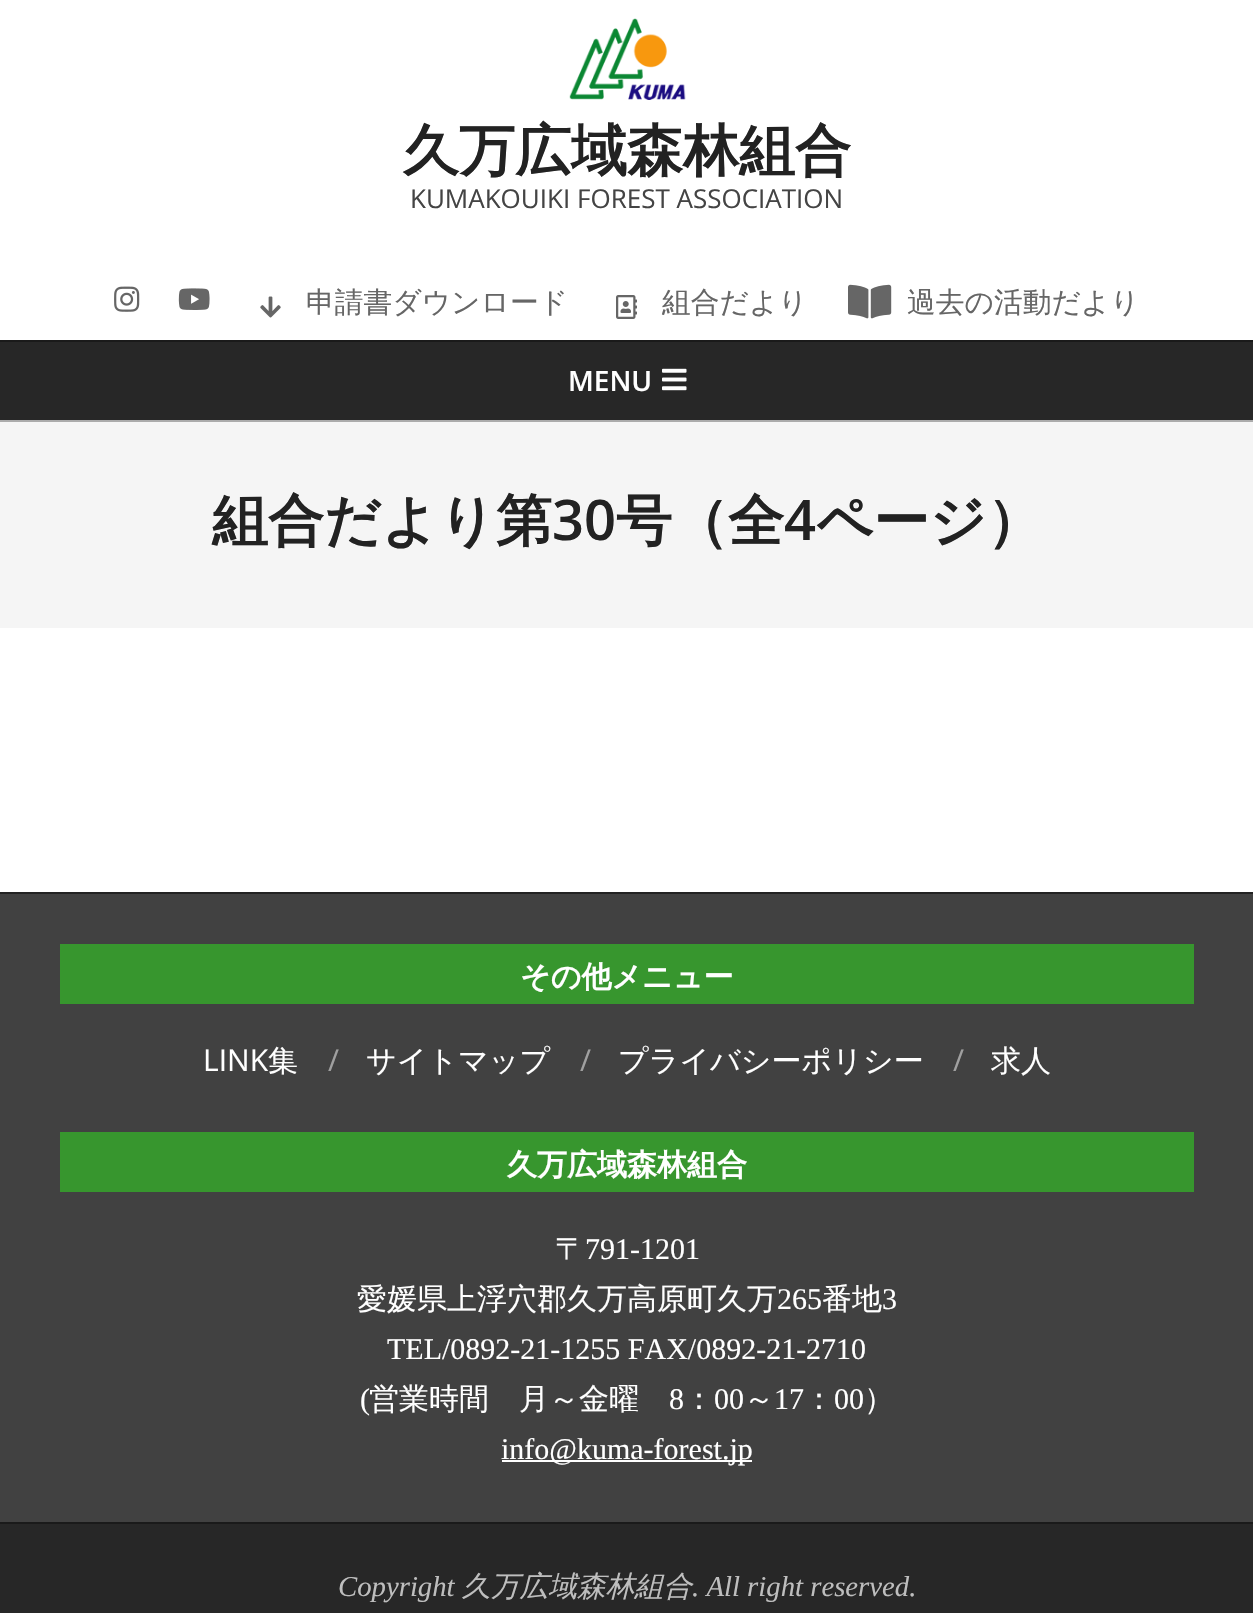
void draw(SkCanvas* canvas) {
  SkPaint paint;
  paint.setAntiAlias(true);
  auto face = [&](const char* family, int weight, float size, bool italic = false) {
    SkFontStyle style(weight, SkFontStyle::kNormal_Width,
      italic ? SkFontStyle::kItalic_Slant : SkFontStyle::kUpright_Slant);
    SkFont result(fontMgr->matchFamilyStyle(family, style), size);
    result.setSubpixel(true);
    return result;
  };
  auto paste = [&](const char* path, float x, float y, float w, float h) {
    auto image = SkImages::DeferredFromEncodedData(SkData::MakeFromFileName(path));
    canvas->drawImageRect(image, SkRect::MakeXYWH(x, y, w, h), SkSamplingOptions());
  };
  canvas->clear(0xffffffff);
  paint.setColor(0xffababab);
  canvas->drawRect(SkRect::MakeXYWH(0, 420, 1253, 2), paint);
  paste("img/1.png", 569, 18, 117, 82);
  paste("img/2.png", 114, 286, 26, 26);
  paste("img/3.png", 178, 288, 32, 22);
  paste("img/4.png", 260, 296, 21, 22);
  paste("img/5.png", 616, 295, 21, 24);
  paste("img/6.png", 848, 284, 44, 35);
  paint.setColor(0xff272727);
  canvas->drawRect(SkRect::MakeXYWH(0, 342, 1253, 78), paint);
  paint.setColor(0xff1a1a1a);
  canvas->drawRect(SkRect::MakeXYWH(0, 340, 1253, 2), paint);
  paste("img/7.png", 662, 368, 25, 23);
  {
    const struct { float x, y, w, h; SkColor color; } items[] = {
      {0, 422, 1253, 206, 0xfff5f5f5},
      {0, 892, 1253, 2, 0xff222222},
      {0, 894, 1253, 628, 0xff414141},
      {60, 944, 1134, 60, 0xff37962e},
      {60, 1132, 1134, 60, 0xff37962e},
      {502, 1460, 250, 2, 0xffffffff},
      {0, 1524, 1253, 89, 0xff272727},
      {0, 1522, 1253, 2, 0xff1a1a1a},
    };
    for (auto [x, y, w, h, color] : items) {
      paint.setColor(color);
      canvas->drawRect(SkRect::MakeXYWH(x, y, w, h), paint);
    }
  }
  auto f0 = face("WenQuanYi Zen Hei", 700, 56);
  paint.setColor(0xff222222);
  canvas->drawString("久万広域森林組合", 403, 170, f0, paint);
  auto f1 = face("Open Sans", 400, 26);
  paint.setColor(0xff444444);
  canvas->drawString("KUMAKOUIKI FOREST ASSOCIATION", 410, 208, f1, paint);
  auto f2 = face("WenQuanYi Zen Hei", 500, 28.75f);
  paint.setColor(0xff666666);
  {
    const struct { const char* s; float x, y; } items[] = {
      {"申請書ダウンロード", 306, 312},
      {"組合だより", 662, 312},
      {"過去の活動だより", 907, 312},
    };
    for (auto [s, x, y] : items) {
      canvas->drawString(s, x, y, f2, paint);
    }
  }
  auto f3 = face("Open Sans", 600, 28);
  paint.setColor(0xffffffff);
  canvas->drawString("MENU", 568, 391, f3, paint);
  paint.setColor(0xff222222);
  canvas->drawString("組合だより第", 212, 540, f0, paint);
  auto f4 = face("Open Sans", 600, 56);
  canvas->drawString("30", 552, 540, f4, paint);
  canvas->drawString("号（全", 616, 540, f0, paint);
  canvas->drawString("4", 784, 540, f4, paint);
  canvas->drawString("ページ）", 816, 540, f0, paint);
  auto f5 = face("WenQuanYi Zen Hei", 700, 30);
  paint.setColor(0xffffffff);
  canvas->drawString("その他メニュー", 520, 987, f5, paint);
  auto f6 = face("Open Sans", 400, 30);
  canvas->drawString("LINK", 203, 1071, f6, paint);
  auto f7 = face("WenQuanYi Zen Hei", 500, 30);
  canvas->drawString("集", 268, 1071, f7, paint);
  paint.setColor(0xffa0a0a0);
  canvas->drawString("/", 328, 1071, f6, paint);
  paint.setColor(0xffffffff);
  canvas->drawString("サイトマップ", 366, 1071, f7, paint);
  paint.setColor(0xffa0a0a0);
  canvas->drawString("/", 580, 1071, f6, paint);
  paint.setColor(0xffffffff);
  canvas->drawString("プライバシーポリシー", 618, 1071, f7, paint);
  paint.setColor(0xffa0a0a0);
  canvas->drawString("/", 953, 1071, f6, paint);
  paint.setColor(0xffffffff);
  canvas->drawString("求人", 991, 1071, f7, paint);
  canvas->drawString("久万広域森林組合", 507, 1175, f5, paint);
  canvas->drawString("〒", 555, 1259, f7, paint);
  auto f8 = face("Liberation Serif", 400, 30);
  canvas->drawString("791-1201", 585, 1259, f8, paint);
  canvas->drawString("愛媛県上浮穴郡久万高原町久万", 357, 1309, f7, paint);
  canvas->drawString("265", 777, 1309, f8, paint);
  canvas->drawString("番地", 822, 1309, f7, paint);
  {
    const struct { const char* s; float x, y; } items[] = {
      {"3", 882, 1309},
      {"TEL/0892-21-1255 FAX/0892-21-2710", 387, 1359},
      {"(", 360, 1409},
    };
    for (auto [s, x, y] : items) {
      canvas->drawString(s, x, y, f8, paint);
    }
  }
  canvas->drawString("営業時間　月～金曜", 369, 1409, f7, paint);
  canvas->drawString("8", 669, 1409, f8, paint);
  canvas->drawString("：", 684, 1409, f7, paint);
  canvas->drawString("00", 714, 1409, f8, paint);
  canvas->drawString("～", 744, 1409, f7, paint);
  canvas->drawString("17", 774, 1409, f8, paint);
  canvas->drawString("：", 804, 1409, f7, paint);
  canvas->drawString("00", 834, 1409, f8, paint);
  canvas->drawString("）", 864, 1409, f7, paint);
  canvas->drawString("info@kuma-forest.jp", 501, 1459, f8, paint);
  auto f9 = face("Liberation Serif", 400, 28.75f, true);
  paint.setColor(0xffbebebe);
  canvas->drawString("Copyright", 338, 1596, f9, paint);
  auto f10 = face("WenQuanYi Zen Hei", 500, 28.75f, true);
  canvas->drawString("久万広域森林組合", 462, 1596, f10, paint);
  canvas->drawString(". All right reserved.", 692, 1596, f9, paint);
}
